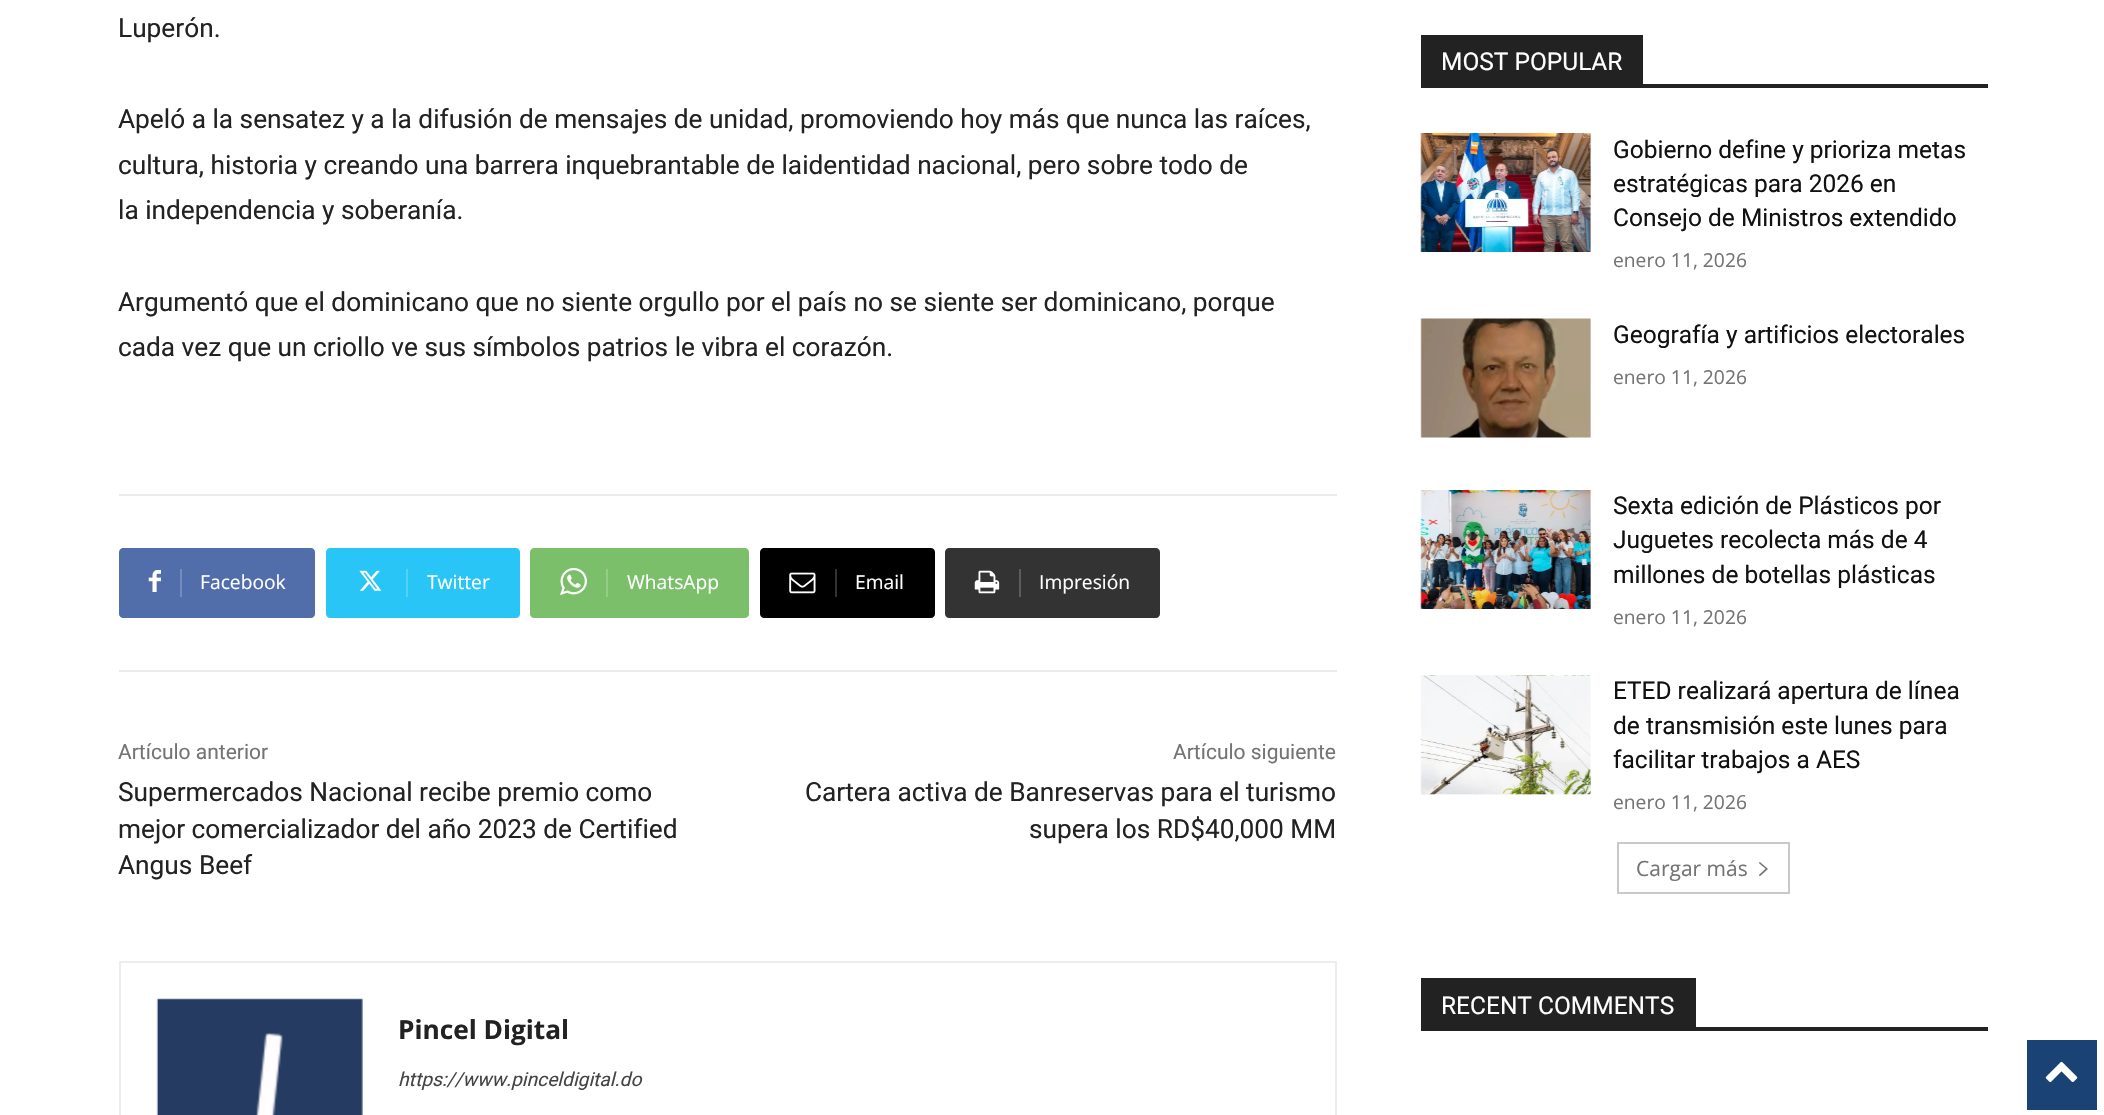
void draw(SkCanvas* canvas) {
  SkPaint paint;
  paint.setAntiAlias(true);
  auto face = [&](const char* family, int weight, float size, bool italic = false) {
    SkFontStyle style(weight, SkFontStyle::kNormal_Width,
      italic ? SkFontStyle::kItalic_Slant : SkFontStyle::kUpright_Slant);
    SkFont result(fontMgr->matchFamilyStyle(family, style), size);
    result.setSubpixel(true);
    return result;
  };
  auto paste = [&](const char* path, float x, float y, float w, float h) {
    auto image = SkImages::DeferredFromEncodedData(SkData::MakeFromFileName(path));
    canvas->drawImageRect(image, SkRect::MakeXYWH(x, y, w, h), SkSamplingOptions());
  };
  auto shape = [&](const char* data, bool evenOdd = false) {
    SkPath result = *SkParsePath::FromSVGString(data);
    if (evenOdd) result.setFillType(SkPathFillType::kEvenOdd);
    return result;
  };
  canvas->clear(0xffffffff);
  paint.setColor(0xffebebeb);
  canvas->drawRect(SkRect::MakeXYWH(119, 494, 1218, 2), paint);
  paint.setColor(0xff516eab);
  canvas->drawPath(shape("M180 548H311C313 548 315 550 315 552V614C315 616 313 618 311 618H180Z"), paint);
  canvas->drawPath(shape("M123 548H191V618H123C121 618 119 616 119 614V552C119 550 121 548 123 548Z"), paint);
  paste("img/1.png", 148, 570, 13, 22);
  paint.setColor(0xff748bbc);
  canvas->drawRect(SkRect::MakeXYWH(180, 569, 2, 28), paint);
  paint.setColor(0xff29c5f6);
  canvas->drawPath(shape("M406 548H516C518 548 520 550 520 552V614C520 616 518 618 516 618H406Z"), paint);
  canvas->drawPath(shape("M330 548H417V618H330C328 618 326 616 326 614V552C326 550 328 548 330 548Z"), paint);
  paste("img/2.png", 359, 570, 23, 21);
  paint.setColor(0xff54d1f8);
  canvas->drawRect(SkRect::MakeXYWH(406, 569, 2, 28), paint);
  paint.setColor(0xff7bbf6a);
  canvas->drawPath(shape("M606 548H745C747 548 749 550 749 552V614C749 616 747 618 745 618H606Z"), paint);
  canvas->drawPath(shape("M534 548H616V618H534C532 618 530 616 530 614V552C530 550 532 548 534 548Z"), paint);
  paste("img/3.png", 560, 567, 27, 28);
  paint.setColor(0xff95cc88);
  canvas->drawRect(SkRect::MakeXYWH(606, 569, 2, 28), paint);
  paint.setColor(0xff000000);
  canvas->drawPath(shape("M835 548H931C933 548 935 550 935 552V614C935 616 933 618 931 618H835Z"), paint);
  canvas->drawPath(shape("M764 548H845V618H764C762 618 760 616 760 614V552C760 550 762 548 764 548Z"), paint);
  paste("img/4.png", 789, 572, 27, 22);
  paint.setColor(0xff333333);
  canvas->drawRect(SkRect::MakeXYWH(835, 569, 2, 28), paint);
  canvas->drawPath(shape("M1019 548H1156C1158 548 1160 550 1160 552V614C1160 616 1158 618 1156 618H1019Z"), paint);
  canvas->drawPath(shape("M949 548H1029V618H949C947 618 945 616 945 614V552C945 550 947 548 949 548Z"), paint);
  paste("img/5.png", 974, 570, 26, 24);
  paint.setColor(0xff5c5c5c);
  canvas->drawRect(SkRect::MakeXYWH(1019, 569, 2, 28), paint);
  paint.setColor(0xffebebeb);
  canvas->drawRect(SkRect::MakeXYWH(119, 670, 1218, 2), paint);
  paint.setStroke(true);
  paint.setStrokeWidth(2);
  paint.setColor(0xffededed);
  canvas->drawRect(SkRect::MakeXYWH(120, 962, 1216, 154), paint);
  paste("img/6.png", 156, 998, 207, 117);
  paint.setStroke(false);
  paint.setColor(0xff222222);
  canvas->drawRect(SkRect::MakeXYWH(1421, 84, 567, 4), paint);
  canvas->drawRect(SkRect::MakeXYWH(1421, 35, 222, 49), paint);
  paste("img/7.png", 1420, 133, 171, 119);
  paste("img/8.png", 1420, 318, 171, 120);
  paste("img/9.png", 1420, 490, 171, 119);
  paste("img/10.png", 1420, 675, 171, 120);
  paint.setStroke(true);
  paint.setColor(0xffc9c9c9);
  canvas->drawRect(SkRect::MakeXYWH(1618, 843, 171, 50), paint);
  paste("img/11.png", 1759, 862, 9, 14);
  paint.setStroke(false);
  {
    const struct { float x, y, w, h; SkColor color; } items[] = {
      {1421, 1027, 567, 4, 0xff222222},
      {1421, 978, 275, 49, 0xff222222},
      {2027, 1040, 70, 70, 0xff1b4274},
    };
    for (auto [x, y, w, h, color] : items) {
      paint.setColor(color);
      canvas->drawRect(SkRect::MakeXYWH(x, y, w, h), paint);
    }
  }
  paste("img/12.png", 2045, 1061, 33, 21);
  auto f0 = face("Roboto", 400, 26.25f);
  paint.setColor(0xff222222);
  {
    const struct { const char* s; float x, y; } items[] = {
      {"Luperón.", 118, 37},
      {"Apeló a la sensatez y a la difusión de mensajes de unidad, promoviendo hoy más que nunca las raíces,", 118, 128},
      {"cultura, historia y creando una barrera inquebrantable de laidentidad nacional, pero sobre todo de", 118, 174},
      {"la independencia y soberanía.", 118, 219},
      {"Argumentó que el dominicano que no siente orgullo por el país no se siente ser dominicano, porque", 118, 311},
      {"cada vez que un criollo ve sus símbolos patrios le vibra el corazón.", 118, 356},
    };
    for (auto [s, x, y] : items) {
      canvas->drawString(s, x, y, f0, paint);
    }
  }
  auto f1 = face("Open Sans", 400, 19.25f);
  paint.setColor(0xffffffff);
  {
    const struct { const char* s; float x, y; } items[] = {
      {"Facebook", 200, 589},
      {"Twitter", 427, 589},
      {"WhatsApp", 627, 589},
      {"Email", 855, 589},
      {"Impresión", 1039, 589},
    };
    for (auto [s, x, y] : items) {
      canvas->drawString(s, x, y, f1, paint);
    }
  }
  auto f2 = face("Roboto", 400, 21);
  paint.setColor(0xff747474);
  canvas->drawString("Artículo anterior", 118, 759, f2, paint);
  paint.setColor(0xff222222);
  {
    const struct { const char* s; float x, y; } items[] = {
      {"Supermercados Nacional recibe premio como", 118, 801},
      {"mejor comercializador del año 2023 de Certified", 118, 838},
      {"Angus Beef", 118, 874},
    };
    for (auto [s, x, y] : items) {
      canvas->drawString(s, x, y, f0, paint);
    }
  }
  paint.setColor(0xff747474);
  canvas->drawString("Artículo siguiente", 1173, 759, f2, paint);
  paint.setColor(0xff222222);
  canvas->drawString("Cartera activa de Banreservas para el turismo", 805, 801, f0, paint);
  canvas->drawString("supera los RD$40,000 MM", 1029, 838, f0, paint);
  auto f3 = face("Open Sans", 700, 26.25f);
  canvas->drawString("Pincel Digital", 398, 1039, f3, paint);
  auto f4 = face("Roboto", 400, 19.25f, true);
  paint.setColor(0xff444444);
  canvas->drawString("https://www.pinceldigital.do", 398, 1086, f4, paint);
  auto f5 = face("Roboto", 400, 24.5f);
  paint.setColor(0xffffffff);
  canvas->drawString("MOST POPULAR", 1441, 70, f5, paint);
  paint.setColor(0xff111111);
  {
    const struct { const char* s; float x, y; } items[] = {
      {"Gobierno define y prioriza metas", 1613, 158},
      {"estratégicas para 2026 en", 1613, 192},
      {"Consejo de Ministros extendido", 1613, 226},
    };
    for (auto [s, x, y] : items) {
      canvas->drawString(s, x, y, f5, paint);
    }
  }
  paint.setColor(0xff747474);
  canvas->drawString("enero 11, 2026", 1613, 267, f1, paint);
  paint.setColor(0xff111111);
  canvas->drawString("Geografía y artificios electorales", 1613, 343, f5, paint);
  paint.setColor(0xff747474);
  canvas->drawString("enero 11, 2026", 1613, 384, f1, paint);
  paint.setColor(0xff111111);
  {
    const struct { const char* s; float x, y; } items[] = {
      {"Sexta edición de Plásticos por", 1613, 514},
      {"Juguetes recolecta más de 4", 1613, 548},
      {"millones de botellas plásticas", 1613, 583},
    };
    for (auto [s, x, y] : items) {
      canvas->drawString(s, x, y, f5, paint);
    }
  }
  paint.setColor(0xff747474);
  canvas->drawString("enero 11, 2026", 1613, 624, f1, paint);
  paint.setColor(0xff111111);
  {
    const struct { const char* s; float x, y; } items[] = {
      {"ETED realizará apertura de línea", 1613, 699},
      {"de transmisión este lunes para", 1613, 734},
      {"facilitar trabajos a AES", 1613, 768},
    };
    for (auto [s, x, y] : items) {
      canvas->drawString(s, x, y, f5, paint);
    }
  }
  paint.setColor(0xff747474);
  canvas->drawString("enero 11, 2026", 1613, 809, f1, paint);
  auto f6 = face("Open Sans", 400, 21);
  canvas->drawString("Cargar más", 1636, 876, f6, paint);
  paint.setColor(0xffffffff);
  canvas->drawString("RECENT COMMENTS", 1441, 1014, f5, paint);
}
